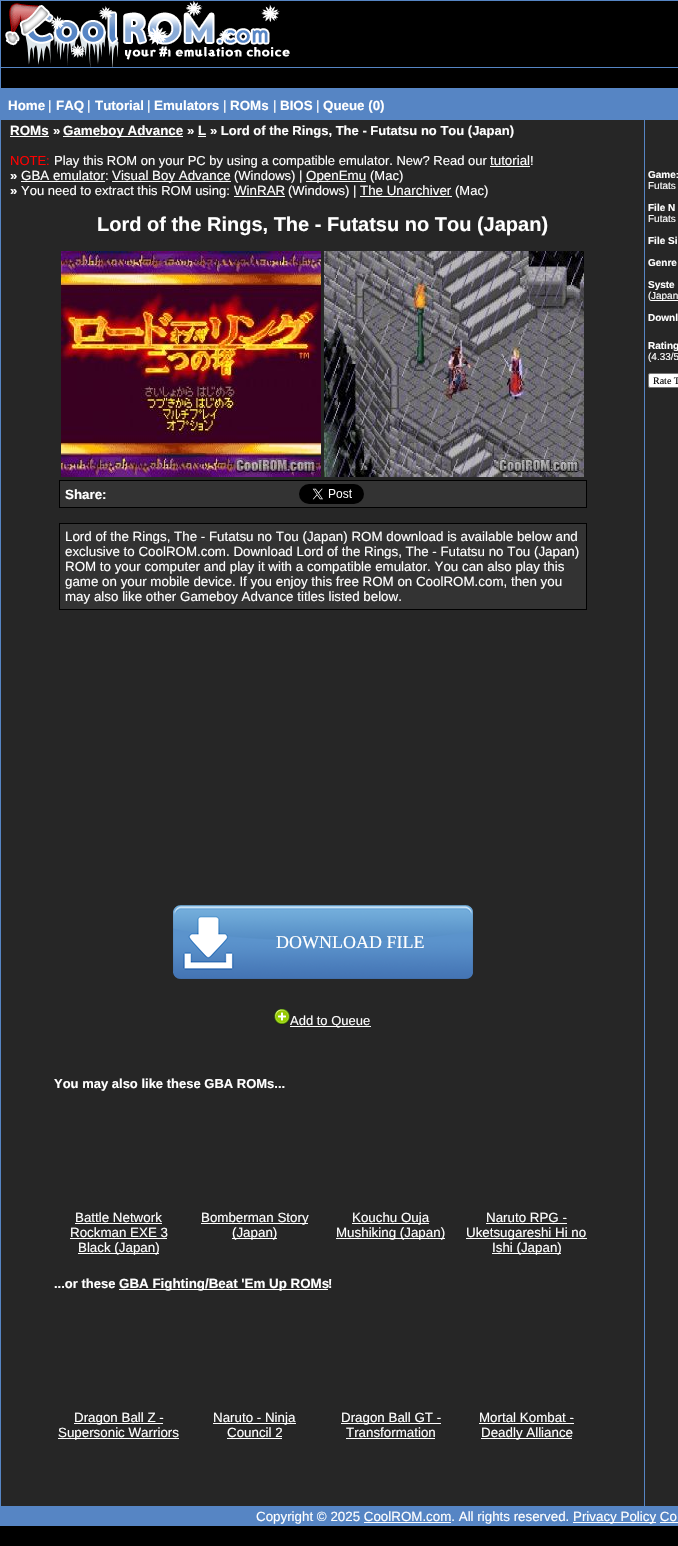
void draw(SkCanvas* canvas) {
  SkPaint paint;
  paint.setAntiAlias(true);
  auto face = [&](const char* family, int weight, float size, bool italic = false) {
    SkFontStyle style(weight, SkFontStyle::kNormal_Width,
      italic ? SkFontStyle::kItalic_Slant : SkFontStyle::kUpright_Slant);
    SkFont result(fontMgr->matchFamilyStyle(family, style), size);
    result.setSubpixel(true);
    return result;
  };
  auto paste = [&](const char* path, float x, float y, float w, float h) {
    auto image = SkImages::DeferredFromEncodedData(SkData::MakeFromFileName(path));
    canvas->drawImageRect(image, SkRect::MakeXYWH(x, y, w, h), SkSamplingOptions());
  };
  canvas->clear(0xff000000);
  paint.setColor(0xff5685c4);
  canvas->drawRect(SkRect::MakeXYWH(0, 0, 678, 1526), paint);
  paint.setColor(0xff000000);
  canvas->drawRect(SkRect::MakeXYWH(1, 1, 677, 66), paint);
  paste("img/1.png", 5, 1, 285, 66);
  {
    const struct { float x, y, w, h; SkColor color; } items[] = {
      {1, 68, 677, 20, 0xff000000},
      {1, 120, 643, 1386, 0xff262626},
      {10, 136, 39, 1, 0xffffffff},
      {63, 136, 120, 1, 0xffffffff},
      {198, 136, 8, 1, 0xffffffff},
      {490, 166, 40, 1, 0xffffffff},
      {21, 181, 84, 1, 0xffffffff},
      {112, 181, 119, 1, 0xffffffff},
      {306, 181, 60, 1, 0xffffffff},
      {234, 196, 51, 1, 0xffffffff},
      {360, 196, 92, 1, 0xffffffff},
    };
    for (auto [x, y, w, h, color] : items) {
      paint.setColor(color);
      canvas->drawRect(SkRect::MakeXYWH(x, y, w, h), paint);
    }
  }
  paste("img/2.png", 61, 251, 260, 226);
  paste("img/3.png", 324, 251, 260, 226);
  paint.setColor(0xff333333);
  canvas->drawRect(SkRect::MakeXYWH(59.5f, 480.5f, 527, 27), paint);
  paint.setStroke(true);
  paint.setStrokeWidth(1);
  paint.setColor(0xff000000);
  canvas->drawRect(SkRect::MakeXYWH(59.5f, 480.5f, 527, 27), paint);
  paste("img/4.png", 299, 484, 65, 20);
  paint.setStroke(false);
  paint.setColor(0xff333333);
  canvas->drawRect(SkRect::MakeXYWH(59.5f, 523.5f, 527, 86), paint);
  paint.setStroke(true);
  paint.setColor(0xff000000);
  canvas->drawRect(SkRect::MakeXYWH(59.5f, 523.5f, 527, 86), paint);
  paste("img/5.png", 173, 905, 300, 74);
  paste("img/6.png", 274, 1009, 16, 16);
  paint.setStroke(false);
  {
    const struct { float x, y, w, h; SkColor color; } items[] = {
      {290, 1026, 81, 1, 0xffffffff},
      {75, 1223, 87, 1, 0xffffffff},
      {70, 1238, 97, 1, 0xffffffff},
      {78, 1253, 81, 1, 0xffffffff},
      {201, 1223, 107, 1, 0xffffffff},
      {232, 1238, 45, 1, 0xffffffff},
      {352, 1223, 77, 1, 0xffffffff},
      {336, 1238, 109, 1, 0xffffffff},
      {486, 1223, 81, 1, 0xffffffff},
      {466, 1238, 121, 1, 0xffffffff},
      {492, 1253, 69, 1, 0xffffffff},
      {119, 1289, 209, 1, 0xffffffff},
      {74, 1423, 89, 1, 0xffffffff},
      {58, 1438, 121, 1, 0xffffffff},
      {213, 1423, 83, 1, 0xffffffff},
      {227, 1438, 55, 1, 0xffffffff},
      {341, 1423, 100, 1, 0xffffffff},
      {346, 1438, 89, 1, 0xffffffff},
      {479, 1423, 95, 1, 0xffffffff},
      {481, 1438, 91, 1, 0xffffffff},
      {645, 120, 33, 1386, 0xff262626},
      {651, 300, 27, 1, 0xffffffff},
    };
    for (auto [x, y, w, h, color] : items) {
      paint.setColor(color);
      canvas->drawRect(SkRect::MakeXYWH(x, y, w, h), paint);
    }
  }
  canvas->drawRoundRect(SkRect::MakeXYWH(648.5f, 373.5f, 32, 14), 1.5f, 1.5f, paint);
  paint.setStroke(true);
  paint.setColor(0xff767676);
  canvas->drawRoundRect(SkRect::MakeXYWH(648.5f, 373.5f, 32, 14), 1.5f, 1.5f, paint);
  paint.setStroke(false);
  {
    const struct { float x, y, w, h; SkColor color; } items[] = {
      {573, 1522, 83, 1, 0xffffffff},
      {364, 1522, 87, 1, 0xffffffff},
      {660, 1522, 18, 1, 0xffffffff},
    };
    for (auto [x, y, w, h, color] : items) {
      paint.setColor(color);
      canvas->drawRect(SkRect::MakeXYWH(x, y, w, h), paint);
    }
  }
  auto f0 = face("Liberation Sans", 700, 13.35f);
  canvas->drawString("Home", 8, 110, f0, paint);
  auto f1 = face("Liberation Sans", 400, 13.35f);
  canvas->drawString("|", 48, 110, f1, paint);
  canvas->drawString("FAQ", 56, 110, f0, paint);
  canvas->drawString("|", 87, 110, f1, paint);
  canvas->drawString("Tutorial", 95, 110, f0, paint);
  canvas->drawString("|", 147, 110, f1, paint);
  canvas->drawString("Emulators", 154, 110, f0, paint);
  canvas->drawString("|", 223, 110, f1, paint);
  canvas->drawString("ROMs", 230, 110, f0, paint);
  canvas->drawString("|", 273, 110, f1, paint);
  canvas->drawString("BIOS", 280, 110, f0, paint);
  canvas->drawString("|", 316, 110, f1, paint);
  canvas->drawString("Queue (0)", 323, 110, f0, paint);
  canvas->drawString("ROMs", 10, 135, f0, paint);
  auto f2 = face("Liberation Sans", 700, 13);
  canvas->drawString("»", 53, 135, f2, paint);
  canvas->drawString("Gameboy Advance", 63, 135, f0, paint);
  canvas->drawString("»", 187, 135, f2, paint);
  canvas->drawString("L", 198, 135, f0, paint);
  canvas->drawString("» Lord of the Rings, The - Futatsu no Tou (Japan)", 210, 135, f2, paint);
  auto f3 = face("Liberation Sans", 400, 13);
  paint.setColor(0xffff0000);
  canvas->drawString("NOTE:", 10, 165, f3, paint);
  paint.setColor(0xffffffff);
  canvas->drawString("Play this ROM on your PC by using a compatible emulator. New? Read our", 54, 165, f3, paint);
  canvas->drawString("tutorial", 490, 165, f1, paint);
  canvas->drawString("!", 530, 165, f3, paint);
  canvas->drawString("»", 10, 180, f2, paint);
  canvas->drawString("GBA emulator", 21, 180, f1, paint);
  canvas->drawString(":", 105, 180, f3, paint);
  canvas->drawString("Visual Boy Advance", 112, 180, f1, paint);
  canvas->drawString("(Windows) |", 234, 180, f3, paint);
  canvas->drawString("OpenEmu", 306, 180, f1, paint);
  canvas->drawString("(Mac)", 370, 180, f3, paint);
  canvas->drawString("»", 10, 195, f2, paint);
  canvas->drawString("You need to extract this ROM using:", 21, 195, f3, paint);
  canvas->drawString("WinRAR", 234, 195, f1, paint);
  canvas->drawString("(Windows) |", 288, 195, f3, paint);
  canvas->drawString("The Unarchiver", 360, 195, f1, paint);
  canvas->drawString("(Mac)", 455, 195, f3, paint);
  auto f4 = face("Liberation Sans", 700, 20);
  canvas->drawString("Lord of the Rings, The - Futatsu no Tou (Japan)", 97, 231, f4, paint);
  canvas->drawString("Share:", 65, 499, f0, paint);
  {
    const struct { const char* s; float x, y; } items[] = {
      {"Lord of the Rings, The - Futatsu no Tou (Japan) ROM download is available below and", 65, 541},
      {"exclusive to CoolROM.com. Download Lord of the Rings, The - Futatsu no Tou (Japan)", 65, 556},
      {"ROM to your computer and play it with a compatible emulator. You can also play this", 65, 571},
      {"game on your mobile device. If you enjoy this free ROM on CoolROM.com, then you", 65, 586},
      {"may also like other Gameboy Advance titles listed below.", 65, 601},
    };
    for (auto [s, x, y] : items) {
      canvas->drawString(s, x, y, f1, paint);
    }
  }
  auto f5 = face("Liberation Serif", 400, 18);
  canvas->drawString("DOWNLOAD FILE", 276, 948, f5, paint);
  canvas->drawString("Add to Queue", 290, 1025, f3, paint);
  canvas->drawString("You may also like these GBA ROMs...", 54, 1088, f2, paint);
  {
    const struct { const char* s; float x, y; } items[] = {
      {"Battle Network", 75, 1222},
      {"Rockman EXE 3", 70, 1237},
      {"Black (Japan)", 78, 1252},
      {"Bomberman Story", 201, 1222},
      {"(Japan)", 232, 1237},
      {"Kouchu Ouja", 352, 1222},
      {"Mushiking (Japan)", 336, 1237},
      {"Naruto RPG -", 486, 1222},
      {"Uketsugareshi Hi no", 466, 1237},
      {"Ishi (Japan)", 492, 1252},
    };
    for (auto [s, x, y] : items) {
      canvas->drawString(s, x, y, f1, paint);
    }
  }
  canvas->drawString("...or these", 54, 1288, f2, paint);
  canvas->drawString("GBA Fighting/Beat 'Em Up ROMs", 119, 1288, f0, paint);
  canvas->drawString("!", 328, 1288, f2, paint);
  {
    const struct { const char* s; float x, y; } items[] = {
      {"Dragon Ball Z -", 74, 1422},
      {"Supersonic Warriors", 58, 1437},
      {"Naruto - Ninja", 213, 1422},
      {"Council 2", 227, 1437},
      {"Dragon Ball GT -", 341, 1422},
      {"Transformation", 346, 1437},
      {"Mortal Kombat -", 479, 1422},
      {"Deadly Alliance", 481, 1437},
    };
    for (auto [s, x, y] : items) {
      canvas->drawString(s, x, y, f1, paint);
    }
  }
  auto f6 = face("Liberation Sans", 700, 10);
  canvas->drawString("Game:", 648, 178, f6, paint);
  auto f7 = face("Liberation Sans", 400, 10);
  canvas->drawString("Futats", 648, 189, f7, paint);
  canvas->drawString("File N", 648, 211, f6, paint);
  canvas->drawString("Futats", 648, 222, f7, paint);
  {
    const struct { const char* s; float x, y; } items[] = {
      {"File Si", 648, 244},
      {"Genre", 648, 266},
      {"Syste", 648, 288},
    };
    for (auto [s, x, y] : items) {
      canvas->drawString(s, x, y, f6, paint);
    }
  }
  canvas->drawString("(", 648, 299, f7, paint);
  canvas->drawString("Japan", 651, 299, f7, paint);
  canvas->drawString("Downl", 648, 321, f6, paint);
  canvas->drawString("Rating", 648, 349, f6, paint);
  canvas->drawString("(4.33/5", 648, 360, f7, paint);
  auto f8 = face("Liberation Serif", 400, 10);
  paint.setColor(0xff000000);
  canvas->drawString("Rate T", 653, 384, f8, paint);
  paint.setColor(0xffffffff);
  canvas->drawString("Copyright © 2025 CoolROM.com. All rights reserved.", 256, 1521, f1, paint);
  canvas->drawString("Privacy Policy Co", 573, 1521, f1, paint);
}
